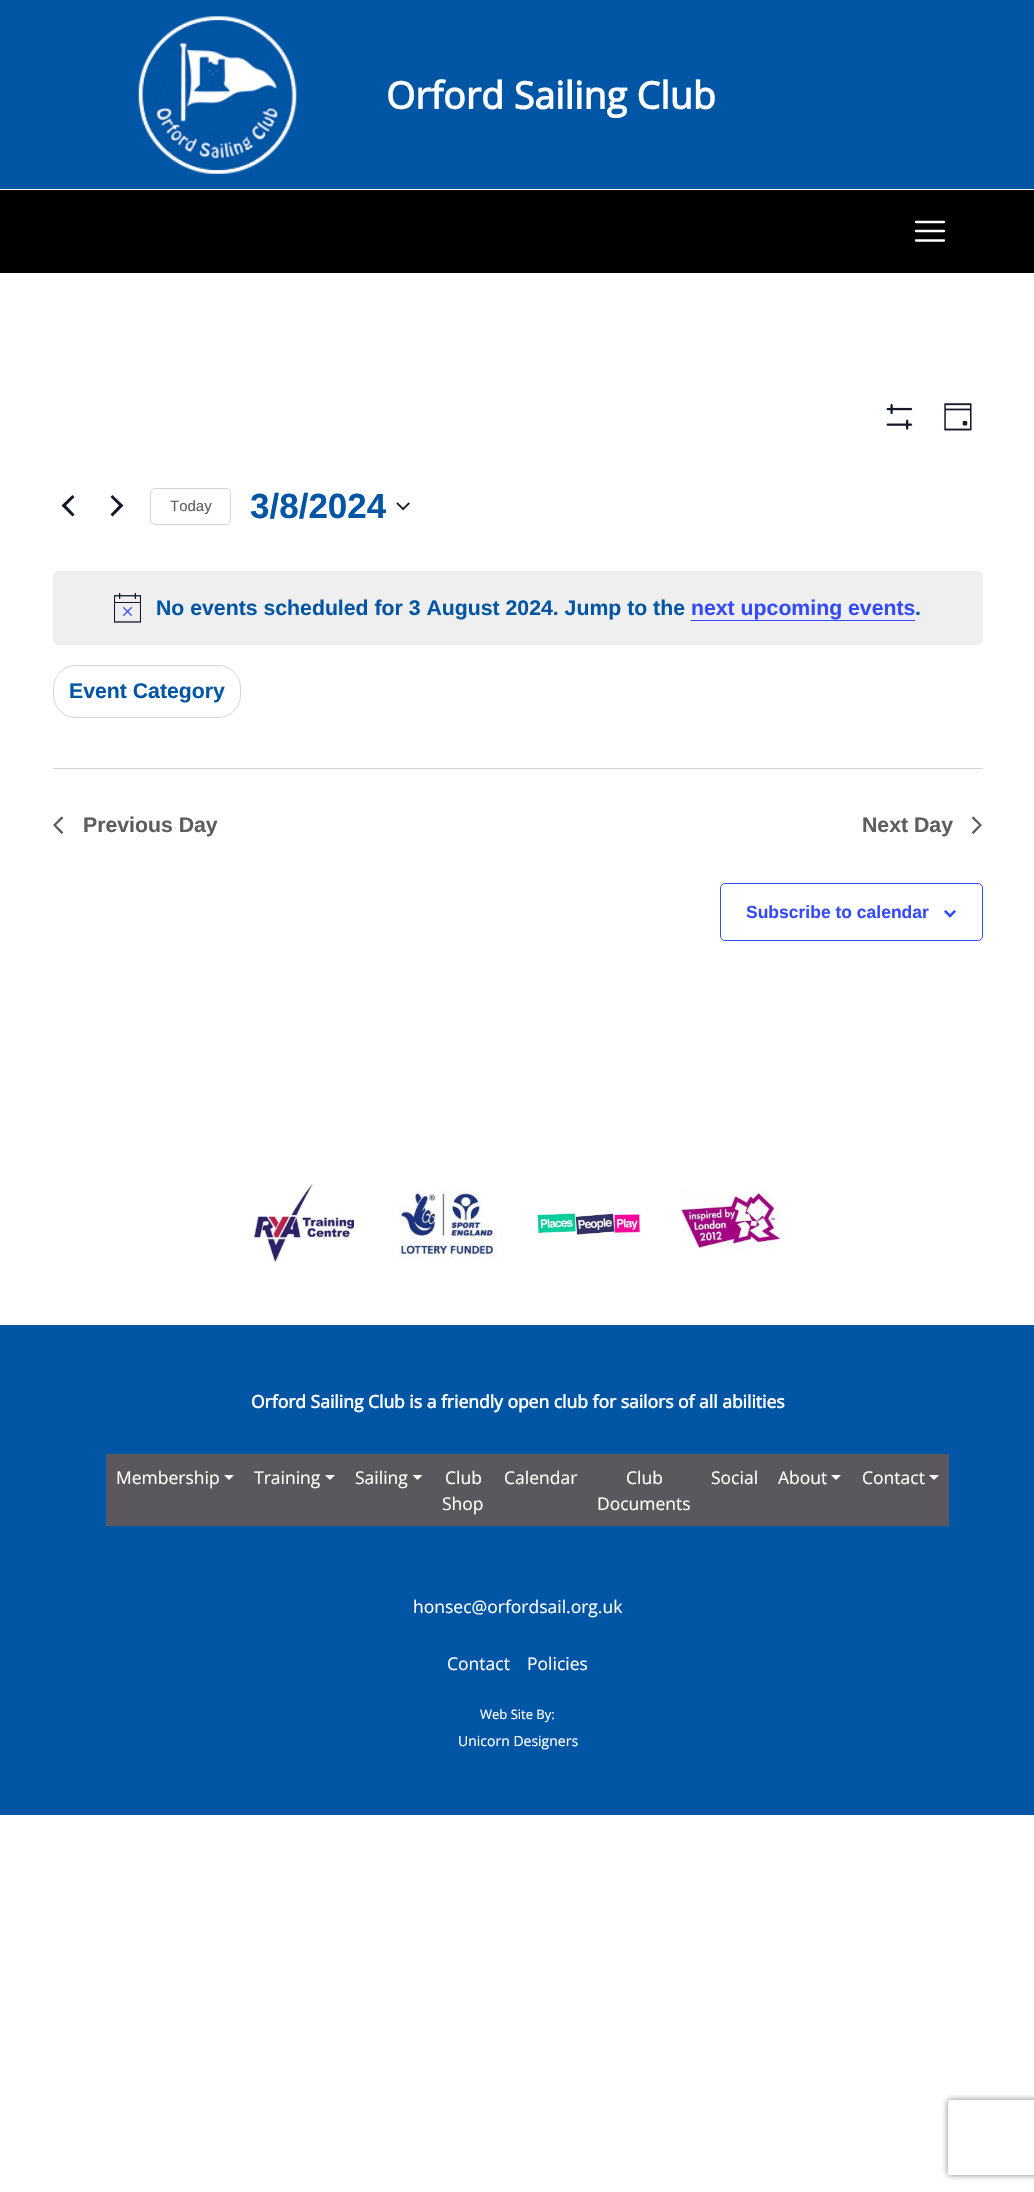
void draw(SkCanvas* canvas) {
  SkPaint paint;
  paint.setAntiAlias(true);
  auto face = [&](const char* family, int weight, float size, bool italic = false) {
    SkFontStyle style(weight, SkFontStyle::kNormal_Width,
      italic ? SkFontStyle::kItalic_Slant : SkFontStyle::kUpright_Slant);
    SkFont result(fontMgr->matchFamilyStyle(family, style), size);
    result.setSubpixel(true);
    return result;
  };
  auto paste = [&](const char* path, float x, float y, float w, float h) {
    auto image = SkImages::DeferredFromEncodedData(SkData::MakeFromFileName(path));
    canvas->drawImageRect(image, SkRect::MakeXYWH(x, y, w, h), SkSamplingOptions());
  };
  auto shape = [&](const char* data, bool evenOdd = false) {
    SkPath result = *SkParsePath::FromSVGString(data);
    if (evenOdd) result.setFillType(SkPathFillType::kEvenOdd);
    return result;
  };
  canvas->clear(0xffffffff);
  paint.setColor(0xff0055a4);
  canvas->drawRect(SkRect::MakeXYWH(0, 0, 1034, 189), paint);
  paste("img/1.png", 138, 16, 159, 158);
  paint.setColor(0xff000000);
  canvas->drawRect(SkRect::MakeXYWH(0, 190, 1034, 83), paint);
  paint.setStroke(true);
  paint.setStrokeWidth(2.3f);
  paint.setStrokeCap(SkPaint::kRound_Cap);
  paint.setColor(0xffffffff);
  canvas->drawPath(shape("M916 222H944M916 231H944M916 240.5H944"), paint);
  paste("img/2.png", 886, 404, 27, 26);
  paste("img/3.png", 944, 403, 28, 28);
  paint.setStroke(false);
  paint.setColor(0xff141827);
  canvas->drawPath(shape("M74.5 514.5L72.5 516.5L61.5 505.5L72.5 495L74.5 497L66 505.5ZM110.5 497L112.5 495L123.5 505.5L112.5 516.5L110.5 514.5L119 505.5Z"), paint);
  paint.setStroke(true);
  paint.setStrokeWidth(1);
  paint.setStrokeCap(SkPaint::kButt_Cap);
  paint.setColor(0xffd5d5d5);
  canvas->drawRoundRect(SkRect::MakeXYWH(150.5f, 488.5f, 80, 36), 4.5f, 4.5f, paint);
  paste("img/4.png", 396, 502, 14, 9);
  paint.setStroke(false);
  paint.setColor(0xffefeff0);
  canvas->drawRoundRect(SkRect::MakeXYWH(53, 571, 930, 74), 5, 5, paint);
  paste("img/5.png", 114, 593, 27, 30);
  paint.setColor(0xff334aff);
  canvas->drawRect(SkRect::MakeXYWH(691, 620, 224, 1), paint);
  paint.setStroke(true);
  paint.setColor(0xffd5d5d5);
  canvas->drawRoundRect(SkRect::MakeXYWH(53.5f, 665.5f, 187, 52), 22.5f, 22.5f, paint);
  paint.setStroke(false);
  canvas->drawRect(SkRect::MakeXYWH(53, 768, 930, 1), paint);
  paint.setColor(0xff5d5d5d);
  canvas->drawPath(shape("M63.5 832.5L61.5 834L53 825L61.5 816.5L63.5 818L56 825Z"), paint);
  canvas->drawPath(shape("M971.5 818L973.5 816.5L982 825L973.5 834L971.5 832.5L979 825Z"), paint);
  paint.setStroke(true);
  paint.setColor(0xff334aff);
  canvas->drawRoundRect(SkRect::MakeXYWH(720.5f, 883.5f, 262, 57), 4.5f, 4.5f, paint);
  paste("img/6.png", 944, 910, 12, 8);
  paste("img/7.png", 254, 1184, 100, 78);
  paste("img/8.png", 397, 1190, 101, 75);
  paste("img/9.png", 536, 1212, 105, 25);
  paste("img/10.png", 680, 1188, 101, 62);
  paint.setStroke(false);
  paint.setColor(0xff0055a5);
  canvas->drawRect(SkRect::MakeXYWH(0, 1325, 1034, 490), paint);
  paint.setColor(0xff5a585c);
  canvas->drawRect(SkRect::MakeXYWH(106, 1454, 843, 72), paint);
  paint.setColor(0xffffffff);
  canvas->drawPath(shape("M224 1475H234L229 1480Z"), paint);
  canvas->drawPath(shape("M325 1475H335L330 1480Z"), paint);
  canvas->drawPath(shape("M412.5 1475H422.5L417.5 1480Z"), paint);
  canvas->drawPath(shape("M831 1475H841L836 1480Z"), paint);
  canvas->drawPath(shape("M929 1475H939L934 1480Z"), paint);
  canvas->save();
  canvas->clipPath(shape("M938 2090H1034V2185H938ZM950.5 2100H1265.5C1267 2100 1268 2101 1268 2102.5V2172.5C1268 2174 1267 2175 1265.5 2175H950.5C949 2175 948 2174 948 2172.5V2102.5C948 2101 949 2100 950.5 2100Z", true), true);
  paint.setColor(0xff808080);
  paint.setMaskFilter(SkMaskFilter::MakeBlur(kNormal_SkBlurStyle, 3));
  canvas->drawRoundRect(SkRect::MakeXYWH(948, 2100, 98, 75), 2.5f, 2.5f, paint);
  paint.setMaskFilter(nullptr);
  canvas->restore();
  auto f0 = face("Open Sans", 700, 37.5f);
  paint.setColor(0xffffffff);
  canvas->drawString("Orford Sailing Club", 386, 109, f0, paint);
  auto f1 = face("Liberation Sans", 400, 15);
  paint.setColor(0xff5d5d5d);
  canvas->drawString("Today", 170, 511, f1, paint);
  auto f2 = face("Liberation Sans", 700, 35);
  paint.setColor(0xff0055a4);
  canvas->drawString("3/8/2024", 250, 518, f2, paint);
  auto f3 = face("Liberation Sans", 700, 21.25f);
  canvas->drawString("No events scheduled for 3 August 2024. Jump to the", 156, 615, f3, paint);
  paint.setColor(0xff334aff);
  canvas->drawString("next upcoming events", 691, 615, f3, paint);
  paint.setColor(0xff0055a4);
  canvas->drawString(".", 915, 615, f3, paint);
  canvas->drawString("Event Category", 69, 698, f3, paint);
  paint.setColor(0xff5d5d5d);
  canvas->drawString("Previous Day", 83, 832, f3, paint);
  canvas->drawString("Next Day", 862, 832, f3, paint);
  auto f4 = face("Liberation Sans", 700, 17.5f);
  paint.setColor(0xff334aff);
  canvas->drawString("Subscribe to calendar", 746, 918, f4, paint);
  auto f5 = face("Open Sans", 700, 17.5f);
  paint.setColor(0xffffffff);
  canvas->drawString("Orford Sailing Club is a friendly open club for sailors of all abilities", 251, 1408, f5, paint);
  auto f6 = face("Open Sans", 400, 17.5f);
  {
    const struct { const char* s; float x, y; } items[] = {
      {"Membership", 116, 1484},
      {"Training", 254, 1484},
      {"Sailing", 355, 1484},
      {"Club", 445, 1484},
      {"Shop", 442, 1510},
      {"Calendar", 504, 1484},
      {"Club", 626, 1484},
      {"Documents", 597, 1510},
      {"Social", 711, 1484},
      {"About", 778, 1484},
      {"Contact", 862, 1484},
      {"honsec@orfordsail.org.uk", 413, 1613},
      {"Contact", 447, 1670},
      {"Policies", 527, 1670},
    };
    for (auto [s, x, y] : items) {
      canvas->drawString(s, x, y, f6, paint);
    }
  }
  auto f7 = face("Open Sans", 400, 13);
  canvas->drawString("Web Site By:", 480, 1719, f7, paint);
  auto f8 = face("Open Sans", 400, 14);
  canvas->drawString("Unicorn Designers", 458, 1746, f8, paint);
}
